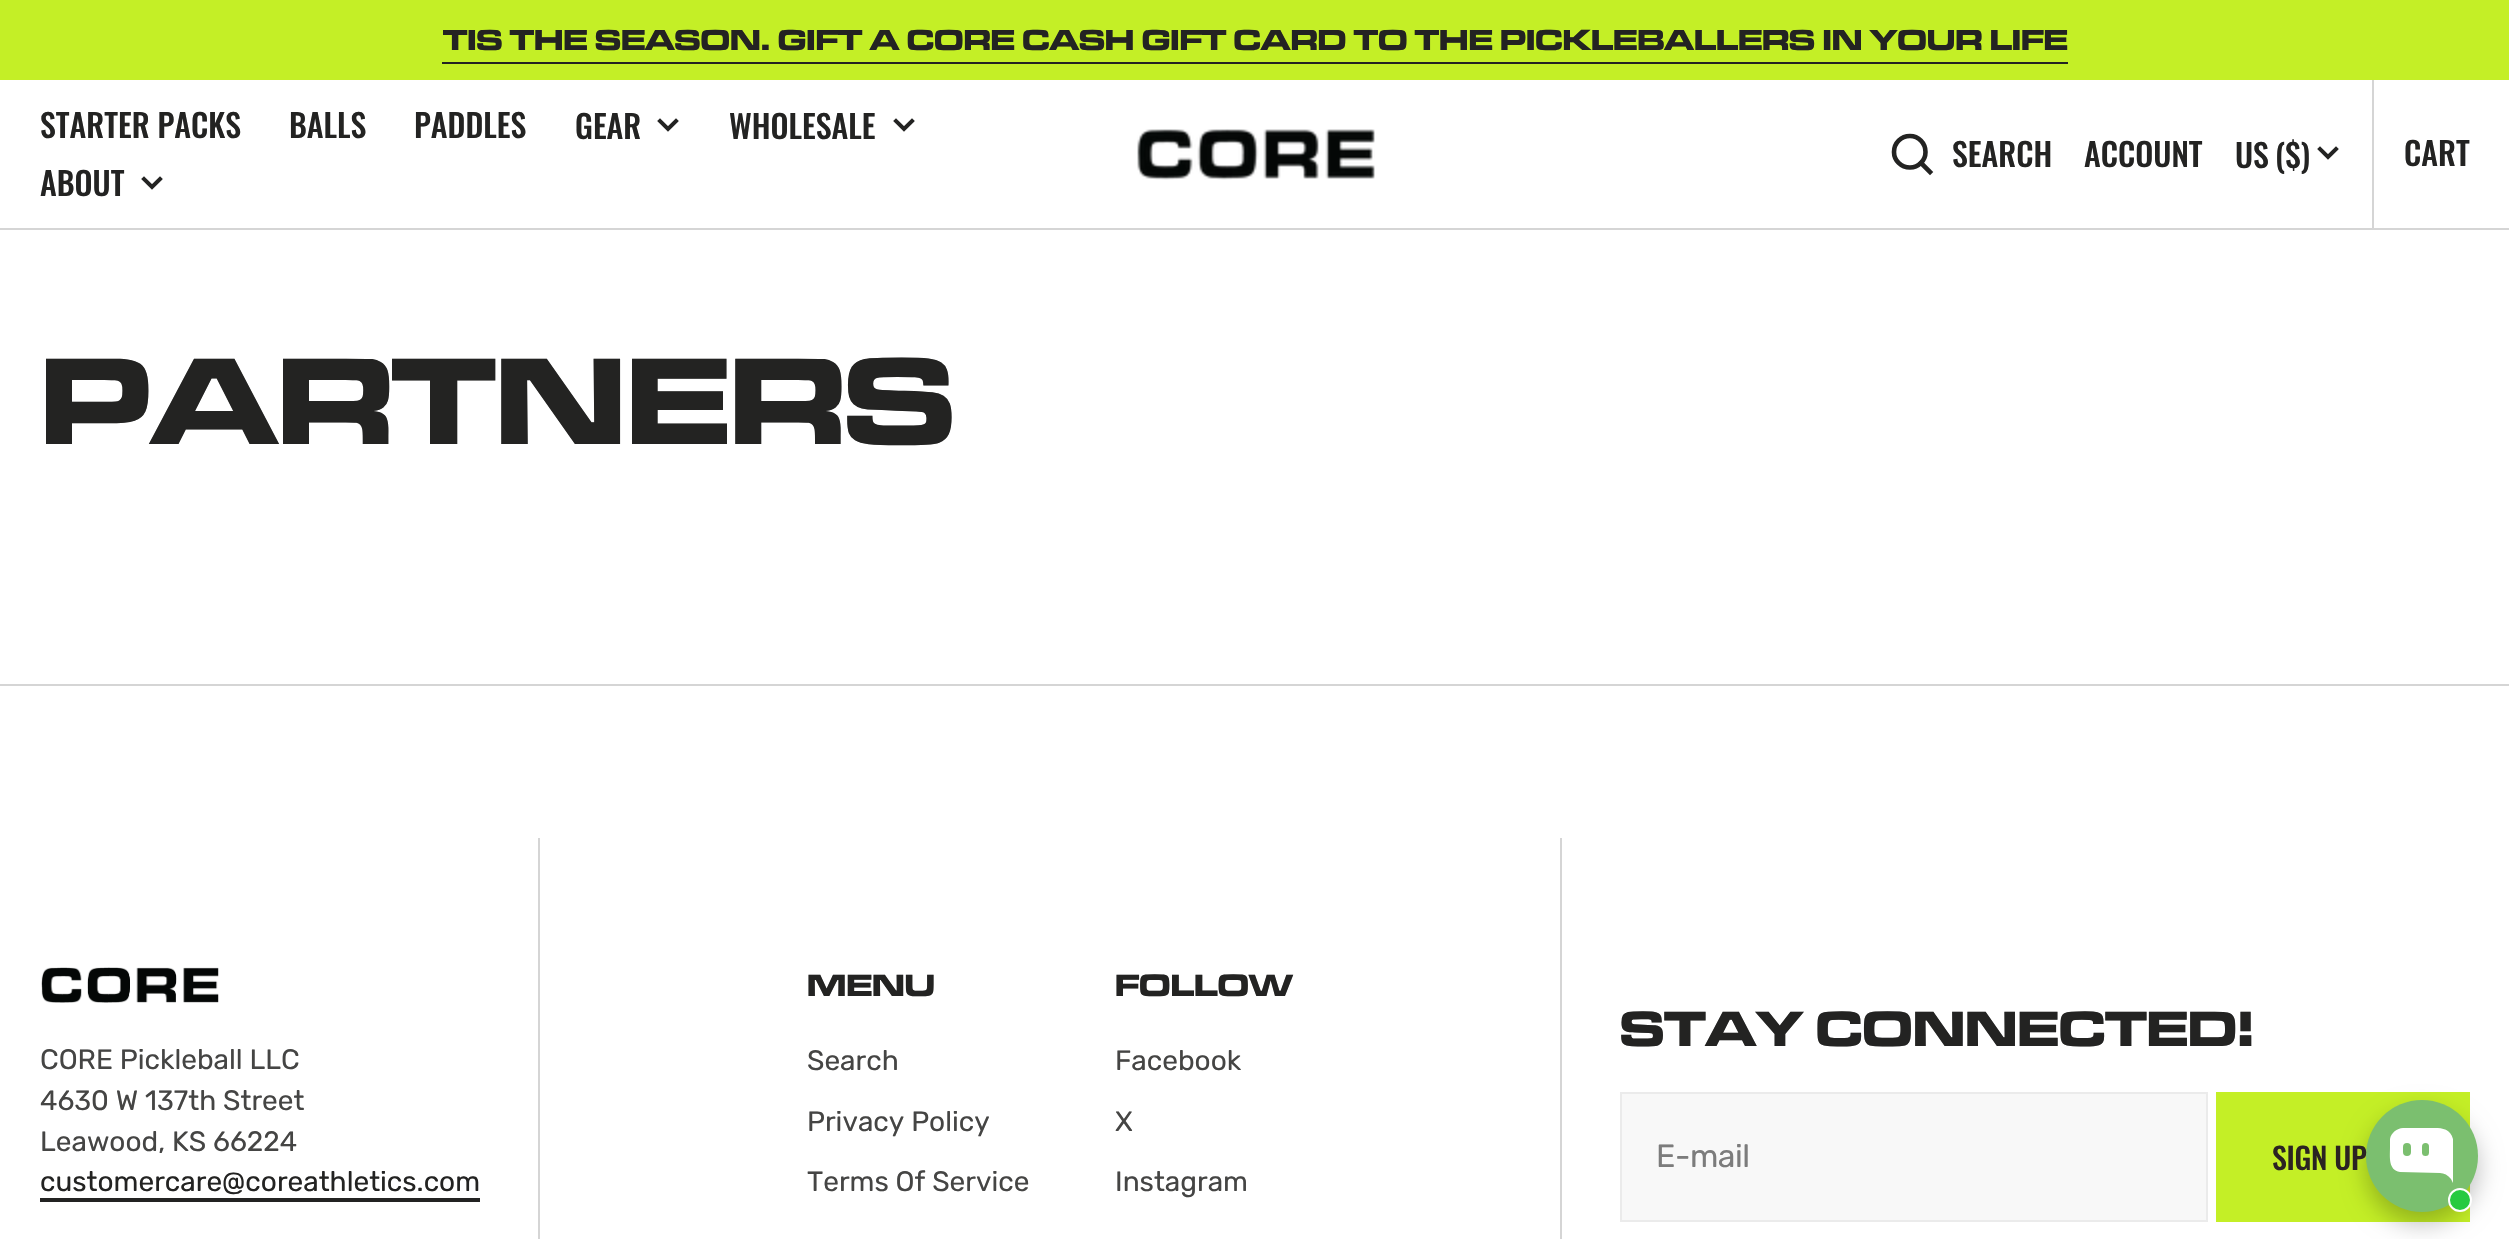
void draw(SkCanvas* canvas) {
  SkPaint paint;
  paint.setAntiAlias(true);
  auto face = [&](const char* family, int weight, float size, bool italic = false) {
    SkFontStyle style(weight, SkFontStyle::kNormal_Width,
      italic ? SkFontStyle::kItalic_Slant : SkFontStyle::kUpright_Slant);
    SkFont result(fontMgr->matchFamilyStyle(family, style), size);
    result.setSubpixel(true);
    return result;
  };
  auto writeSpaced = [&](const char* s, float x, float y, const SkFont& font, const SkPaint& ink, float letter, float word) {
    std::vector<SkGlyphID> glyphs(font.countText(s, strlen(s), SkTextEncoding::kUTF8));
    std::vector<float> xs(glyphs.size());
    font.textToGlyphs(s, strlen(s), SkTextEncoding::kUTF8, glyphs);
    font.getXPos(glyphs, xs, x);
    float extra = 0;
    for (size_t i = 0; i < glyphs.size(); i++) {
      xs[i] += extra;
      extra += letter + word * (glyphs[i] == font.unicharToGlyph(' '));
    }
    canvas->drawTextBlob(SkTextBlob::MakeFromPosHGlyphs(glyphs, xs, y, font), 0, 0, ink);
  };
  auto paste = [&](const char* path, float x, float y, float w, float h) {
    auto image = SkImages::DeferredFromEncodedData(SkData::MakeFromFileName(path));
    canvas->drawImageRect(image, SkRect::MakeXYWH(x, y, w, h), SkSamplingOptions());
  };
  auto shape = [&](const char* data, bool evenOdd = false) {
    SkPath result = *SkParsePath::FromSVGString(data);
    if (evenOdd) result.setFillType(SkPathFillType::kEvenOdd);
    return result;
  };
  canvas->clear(0xffffffff);
  {
    const struct { float x, y, w, h; SkColor color; } items[] = {
      {0, 0, 2509, 80, 0xffc4ef26},
      {442, 62, 1626, 2, 0xff232322},
      {0, 228, 2509, 2, 0xffd5d5d5},
    };
    for (auto [x, y, w, h, color] : items) {
      paint.setColor(color);
      canvas->drawRect(SkRect::MakeXYWH(x, y, w, h), paint);
    }
  }
  paint.setStroke(true);
  paint.setStrokeWidth(4);
  paint.setStrokeCap(SkPaint::kSquare_Cap);
  paint.setColor(0xff232322);
  canvas->drawPath(shape("M676 121L668 129L660 121"), paint);
  canvas->drawPath(shape("M912 121L904 129L896 121"), paint);
  canvas->drawPath(shape("M160 179L152 187L144 179"), paint);
  paste("img/1.png", 1137, 129, 238, 51);
  paint.setStrokeWidth(4.6f);
  paint.setStrokeCap(SkPaint::kRound_Cap);
  paint.setStrokeJoin(SkPaint::kRound_Join);
  canvas->drawPath(shape("M1910 167.5C1918.5 167.5 1925.5 160.5 1925.5 152C1925.5 143 1918.5 136 1910 136C1901 136 1894 143 1894 152C1894 160.5 1901 167.5 1910 167.5Z"), paint);
  paint.setStrokeCap(SkPaint::kSquare_Cap);
  canvas->drawPath(shape("M1921 163L1930 172"), paint);
  paint.setStrokeWidth(4);
  paint.setStrokeJoin(SkPaint::kMiter_Join);
  canvas->drawPath(shape("M2336 149L2328 157L2320 149"), paint);
  paint.setStroke(false);
  paint.setColor(0xffd5d5d5);
  canvas->drawRect(SkRect::MakeXYWH(2372, 80, 2, 150), paint);
  canvas->drawRect(SkRect::MakeXYWH(0, 684, 2509, 2), paint);
  paste("img/2.png", 41, 967, 178, 36);
  {
    const struct { float x, y, w, h; SkColor color; } items[] = {
      {538, 838, 2, 401, 0xffd5d5d5},
      {40, 1198, 440, 4, 0xff232322},
      {1560, 838, 2, 401, 0xffd5d5d5},
    };
    for (auto [x, y, w, h, color] : items) {
      paint.setColor(color);
      canvas->drawRect(SkRect::MakeXYWH(x, y, w, h), paint);
    }
  }
  paint.setColor(0xfff8f8f8);
  canvas->drawRect(SkRect::MakeXYWH(1621, 1093, 586, 128), paint);
  paint.setStroke(true);
  paint.setStrokeWidth(2);
  paint.setStrokeCap(SkPaint::kButt_Cap);
  paint.setColor(0xffebebeb);
  canvas->drawRect(SkRect::MakeXYWH(1621, 1093, 586, 128), paint);
  paint.setStroke(false);
  paint.setColor(0xffc4ef26);
  canvas->drawRect(SkRect::MakeXYWH(2216, 1092, 254, 130), paint);
  paint.setColor(0x40000000);
  paint.setMaskFilter(SkMaskFilter::MakeBlur(kNormal_SkBlurStyle, 12));
  canvas->drawRoundRect(SkRect::MakeXYWH(2366, 1112, 112, 112), 56, 56, paint);
  paint.setMaskFilter(nullptr);
  paint.setColor(0xff7bbf6f);
  canvas->drawCircle(2422, 1156, 56, paint);
  paint.setColor(0xffffffff);
  canvas->drawPath(shape("M2403 1128C2397 1128 2391 1133 2390 1139V1147C2390 1157 2388 1170 2400 1172L2440 1173C2444 1173 2448 1175 2451 1179L2453 1183V1139C2450 1126 2437 1128 2428 1128Z", true), paint);
  paint.setColor(0xff7bbf6f);
  canvas->drawRoundRect(SkRect::MakeXYWH(2403, 1143, 8, 13), 4, 4, paint);
  canvas->drawRoundRect(SkRect::MakeXYWH(2422, 1143, 7, 13), 3.5f, 3.5f, paint);
  paint.setColor(0xff27ca40);
  canvas->drawCircle(2460, 1200, 11, paint);
  paint.setStroke(true);
  paint.setColor(0xffffffff);
  canvas->drawCircle(2460, 1200, 11, paint);
  auto f0 = face("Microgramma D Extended", 700, 30);
  paint.setStroke(false);
  paint.setColor(0xff232322);
  canvas->drawString("TIS THE SEASON. GIFT A CORE CASH GIFT CARD TO THE PICKLEBALLERS IN YOUR LIFE", 443, 50, f0, paint);
  auto f1 = face("Oswald", 500, 32);
  {
    const struct { const char* s; float x, y; } items[] = {
      {"STARTER PACKS", 40, 138},
      {"BALLS", 289, 138},
      {"PADDLES", 414, 138},
      {"GEAR", 575, 139},
      {"WHOLESALE", 729, 139},
      {"ABOUT", 40, 196},
      {"SEARCH", 1952, 167},
      {"ACCOUNT", 2084, 167},
      {"US", 2235, 168},
      {"($)", 2275, 168},
      {"CART", 2404, 166},
    };
    for (auto [s, x, y] : items) {
      canvas->drawString(s, x, y, f1, paint);
    }
  }
  auto f2 = face("Microgramma D Extended", 700, 128);
  canvas->drawString("PARTNERS", 40, 444, f2, paint);
  auto f3 = face("Rubik", 300, 28);
  paint.setColor(0xff454544);
  {
    const struct { const char* s; float x, y; } items[] = {
      {"CORE Pickleball LLC", 40, 1069},
      {"4630 W 137th Street", 40, 1110},
      {"Leawood, KS 66224", 40, 1151},
    };
    for (auto [s, x, y] : items) {
      canvas->drawString(s, x, y, f3, paint);
    }
  }
  paint.setColor(0xff232322);
  canvas->drawString("customercare@coreathletics.com", 40, 1191, f3, paint);
  auto f4 = face("Microgramma D Extended", 700, 32);
  canvas->drawString("MENU", 807, 996, f4, paint);
  paint.setColor(0xff454544);
  {
    const struct { const char* s; float x, y; } items[] = {
      {"Search", 807, 1070},
      {"Privacy Policy", 807, 1131},
      {"Terms Of Service", 807, 1191},
    };
    for (auto [s, x, y] : items) {
      canvas->drawString(s, x, y, f3, paint);
    }
  }
  paint.setColor(0xff232322);
  canvas->drawString("FOLLOW", 1115, 996, f4, paint);
  paint.setColor(0xff454544);
  {
    const struct { const char* s; float x, y; } items[] = {
      {"Facebook", 1115, 1070},
      {"X", 1115, 1131},
      {"Instagram", 1115, 1191},
    };
    for (auto [s, x, y] : items) {
      canvas->drawString(s, x, y, f3, paint);
    }
  }
  auto f5 = face("Microgramma D Extended", 700, 51.25f);
  paint.setColor(0xff232322);
  canvas->drawString("STAY CONNECTED!", 1620, 1046, f5, paint);
  auto f6 = face("Rubik", 300, 32);
  paint.setColor(0xff7c7c7c);
  writeSpaced("E-mail", 1656, 1167, f6, paint, -0.5f, 0);
  auto f7 = face("Oswald", 500, 30);
  paint.setColor(0xff2b2322);
  writeSpaced("SIGN UP", 2272, 1170, f7, paint, -0.25f, 0);
}
